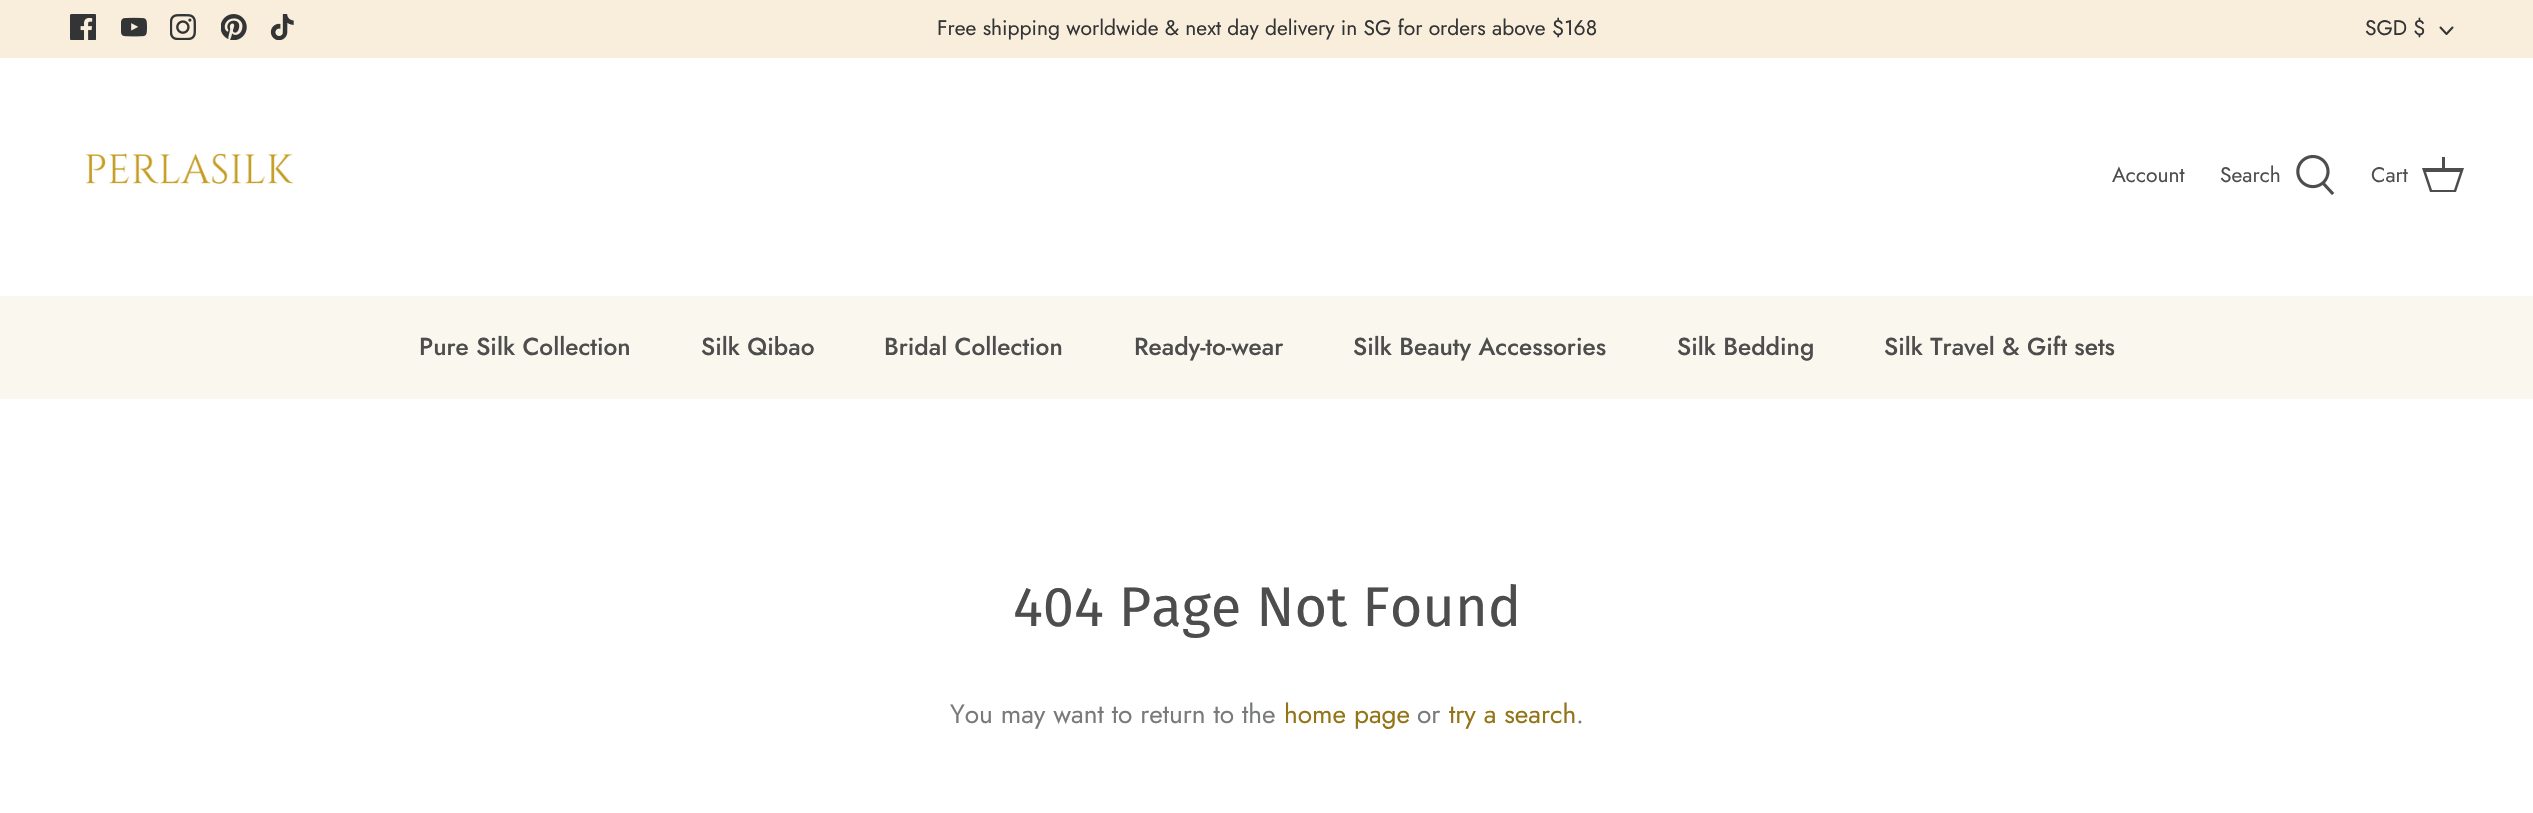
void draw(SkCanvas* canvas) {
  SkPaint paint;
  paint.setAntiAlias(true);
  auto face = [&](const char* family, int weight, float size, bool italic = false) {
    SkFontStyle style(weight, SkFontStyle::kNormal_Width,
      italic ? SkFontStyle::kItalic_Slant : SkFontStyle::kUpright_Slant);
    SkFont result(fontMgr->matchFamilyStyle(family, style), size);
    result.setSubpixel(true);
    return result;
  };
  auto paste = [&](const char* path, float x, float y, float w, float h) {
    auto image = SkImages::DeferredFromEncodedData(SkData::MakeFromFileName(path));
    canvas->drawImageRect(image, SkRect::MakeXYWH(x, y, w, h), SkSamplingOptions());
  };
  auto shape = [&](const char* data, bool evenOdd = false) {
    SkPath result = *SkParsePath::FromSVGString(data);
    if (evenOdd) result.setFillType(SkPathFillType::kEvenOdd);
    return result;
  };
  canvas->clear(0xffffffff);
  paint.setColor(0xfff8eedb);
  canvas->drawRect(SkRect::MakeXYWH(0, 0, 2533, 58), paint);
  paste("img/1.png", 70, 14, 26, 26);
  paste("img/2.png", 121, 17, 26, 20);
  paste("img/3.png", 170, 14, 26, 26);
  paste("img/4.png", 221, 14, 26, 26);
  paste("img/5.png", 270, 14, 24, 26);
  paint.setStroke(true);
  paint.setStrokeWidth(2);
  paint.setStrokeCap(SkPaint::kRound_Cap);
  paint.setStrokeJoin(SkPaint::kRound_Join);
  paint.setColor(0xff333435);
  canvas->drawPath(shape("M2440.5 27.5L2446.5 34L2452.5 27.5"), paint);
  paste("img/6.png", 85, 153, 209, 31);
  paste("img/7.png", 2296, 154, 39, 41);
  paint.setStroke(false);
  paint.setColor(0xff4d4d4d);
  canvas->drawPath(shape("M2442 168V157H2445V168H2464L2456 192H2430L2422 168ZM2426 172L2432 190H2454L2460 172Z"), paint);
  paint.setColor(0xfffaf7ef);
  canvas->drawRect(SkRect::MakeXYWH(0, 296, 2533, 103), paint);
  auto f0 = face("Jost", 400, 21);
  paint.setColor(0xff333435);
  canvas->drawString("Free shipping worldwide & next day delivery in SG for orders above $168", 937, 35, f0, paint);
  canvas->drawString("SGD $", 2365, 35, f0, paint);
  paint.setColor(0xff4d4d4d);
  {
    const struct { const char* s; float x, y; } items[] = {
      {"Account", 2112, 182},
      {"Search", 2220, 182},
      {"Cart", 2371, 182},
    };
    for (auto [s, x, y] : items) {
      canvas->drawString(s, x, y, f0, paint);
    }
  }
  auto f1 = face("Jost", 500, 24.5f);
  {
    const struct { const char* s; float x, y; } items[] = {
      {"Pure Silk Collection", 419, 355},
      {"Silk Qibao", 701, 355},
      {"Bridal Collection", 884, 355},
      {"Ready-to-wear", 1134, 355},
      {"Silk Beauty Accessories", 1353, 355},
      {"Silk Bedding", 1677, 355},
      {"Silk Travel & Gift sets", 1884, 355},
    };
    for (auto [s, x, y] : items) {
      canvas->drawString(s, x, y, f1, paint);
    }
  }
  auto f2 = face("Fira Sans", 400, 56);
  canvas->drawString("404 Page Not Found", 1013, 626, f2, paint);
  auto f3 = face("Jost", 400, 26.25f);
  paint.setColor(0xff787a7c);
  canvas->drawString("You may want to return to the", 950, 723, f3, paint);
  paint.setColor(0xff937417);
  canvas->drawString("home page", 1284, 723, f3, paint);
  paint.setColor(0xff787a7c);
  canvas->drawString("or", 1417, 723, f3, paint);
  paint.setColor(0xff937417);
  canvas->drawString("try a search", 1449, 723, f3, paint);
  paint.setColor(0xff787a7c);
  canvas->drawString(".", 1576, 723, f3, paint);
}
